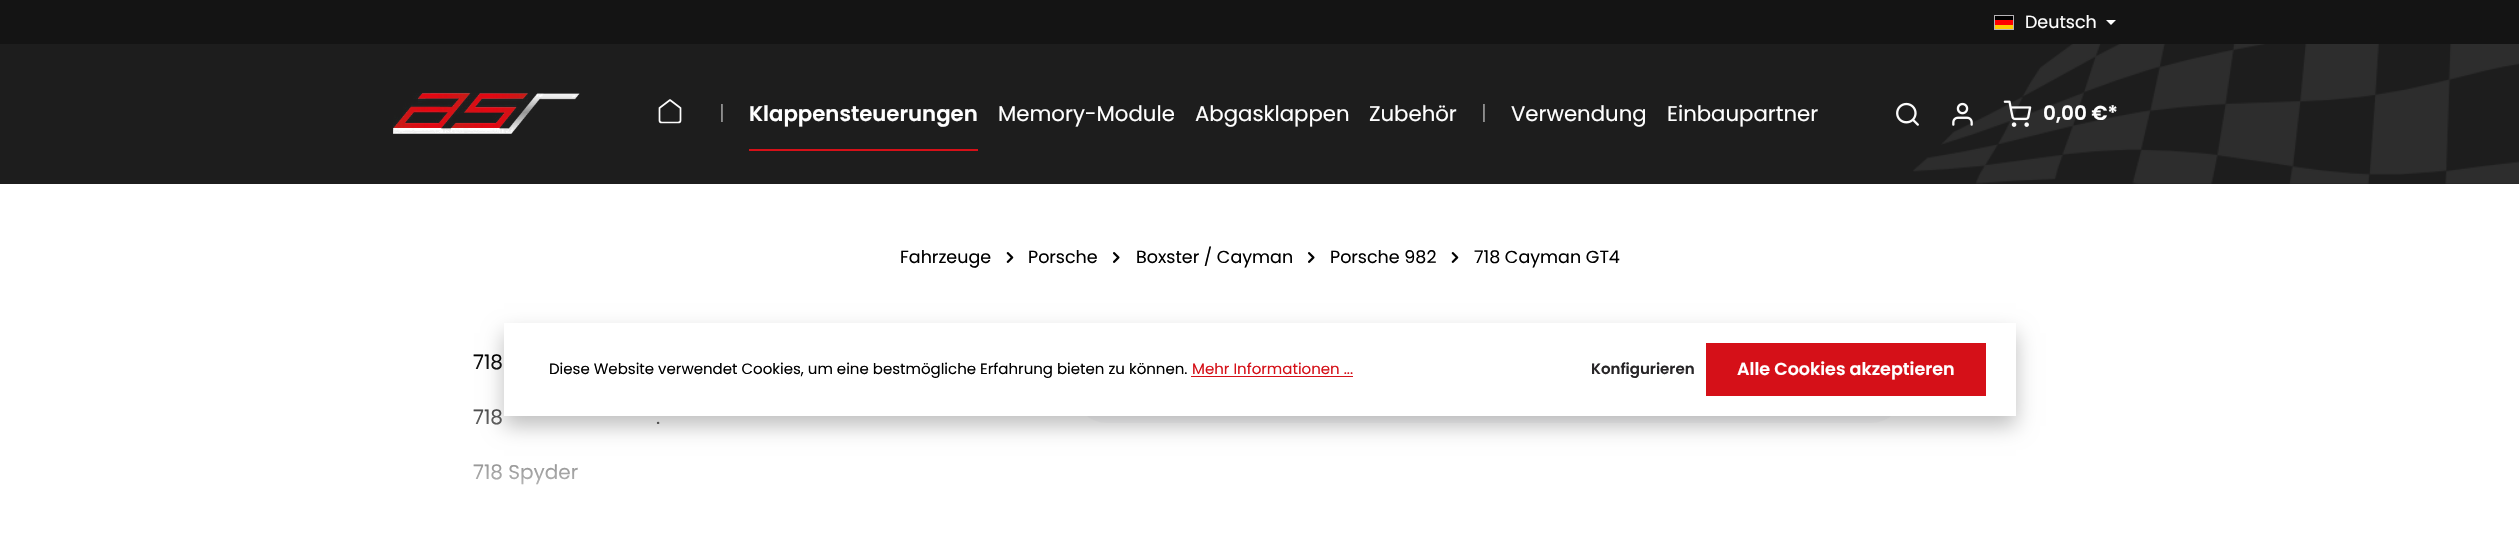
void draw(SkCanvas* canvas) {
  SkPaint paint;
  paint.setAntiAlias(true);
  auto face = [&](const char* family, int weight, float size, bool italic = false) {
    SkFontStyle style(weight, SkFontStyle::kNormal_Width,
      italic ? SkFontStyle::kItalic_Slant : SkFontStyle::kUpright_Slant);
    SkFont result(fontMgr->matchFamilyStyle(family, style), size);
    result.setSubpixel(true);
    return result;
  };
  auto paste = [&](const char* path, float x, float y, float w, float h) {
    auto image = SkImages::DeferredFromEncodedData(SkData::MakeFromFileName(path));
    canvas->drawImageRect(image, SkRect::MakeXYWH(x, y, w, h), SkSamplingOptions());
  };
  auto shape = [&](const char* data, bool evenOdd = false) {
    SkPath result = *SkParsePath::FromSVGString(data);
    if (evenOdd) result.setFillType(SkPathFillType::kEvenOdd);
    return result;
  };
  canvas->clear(0xffffffff);
  {
    const struct { float x, y, w, h; SkColor color; } items[] = {
      {0, 0, 2519, 44, 0xff141414},
      {1995, 16, 18, 4, 0xff000000},
      {1995, 20, 18, 5, 0xffff0000},
      {1995, 25, 18, 4, 0xffffcc00},
    };
    for (auto [x, y, w, h, color] : items) {
      paint.setColor(color);
      canvas->drawRect(SkRect::MakeXYWH(x, y, w, h), paint);
    }
  }
  paint.setStroke(true);
  paint.setStrokeWidth(1);
  paint.setColor(0xffb7b3b7);
  canvas->drawRect(SkRect::MakeXYWH(1994.5f, 15.5f, 19, 14), paint);
  paint.setStroke(false);
  paint.setColor(0xffffffff);
  canvas->drawPath(shape("M2106 20H2116L2111 25Z"), paint);
  paint.setColor(0xff1d1d1d);
  canvas->drawRect(SkRect::MakeXYWH(0, 44, 2519, 140), paint);
  paste("img/1.png", 1913, 44, 606, 140);
  paste("img/2.png", 393, 92, 187, 42);
  paint.setStroke(true);
  paint.setStrokeWidth(1.7f);
  paint.setStrokeCap(SkPaint::kRound_Cap);
  paint.setStrokeJoin(SkPaint::kRound_Join);
  paint.setColor(0xfffcfcfc);
  canvas->drawPath(shape("M659.5 108L670 100L680.5 108V120.5C680.5 121.5 679.5 122.5 678 122.5H662C660.5 122.5 659.5 121.5 659.5 120.5Z"), paint);
  paint.setStroke(false);
  paint.setColor(0xffd51018);
  canvas->drawRect(SkRect::MakeXYWH(749, 149, 229, 2), paint);
  paste("img/3.png", 1896, 102, 23, 24);
  paste("img/4.png", 1952, 102, 21, 24);
  paste("img/5.png", 2003, 100, 29, 27);
  paste("img/6.png", 1006, 252, 8, 11);
  paste("img/7.png", 1113, 252, 7, 11);
  paste("img/7.png", 1308, 252, 7, 11);
  paste("img/6.png", 1451, 252, 8, 11);
  paint.setColor(0xfff6f6f7);
  canvas->drawRoundRect(SkRect::MakeXYWH(1075, 360, 828, 63), 31.5f, 31.5f, paint);
  auto f0 = face("Poppins", 400, 17.5f);
  paint.setColor(0xffffffff);
  canvas->drawString("Deutsch", 2025, 28, f0, paint);
  auto f1 = face("Poppins", 400, 20);
  paint.setColor(0xff8d8d8d);
  canvas->drawString("|", 719, 120, f1, paint);
  auto f2 = face("Poppins", 600, 21.25f);
  paint.setColor(0xffffffff);
  canvas->drawString("Klappensteuerungen", 749, 121, f2, paint);
  auto f3 = face("Poppins", 400, 21.25f);
  {
    const struct { const char* s; float x, y; } items[] = {
      {"Memory-Module", 998, 121},
      {"Abgasklappen", 1195, 121},
      {"Zubehör", 1369, 121},
    };
    for (auto [s, x, y] : items) {
      canvas->drawString(s, x, y, f3, paint);
    }
  }
  paint.setColor(0xff8d8d8d);
  canvas->drawString("|", 1481, 120, f1, paint);
  paint.setColor(0xffffffff);
  canvas->drawString("Verwendung", 1511, 121, f3, paint);
  canvas->drawString("Einbaupartner", 1667, 121, f3, paint);
  auto f4 = face("Poppins", 600, 20);
  canvas->drawString("0,00 €*", 2043, 120, f4, paint);
  paint.setColor(0xff000000);
  {
    const struct { const char* s; float x, y; } items[] = {
      {"Fahrzeuge", 900, 263},
      {"Porsche", 1028, 263},
      {"Boxster / Cayman", 1136, 263},
      {"Porsche 982", 1330, 263},
      {"718 Cayman GT4", 1474, 263},
    };
    for (auto [s, x, y] : items) {
      canvas->drawString(s, x, y, f0, paint);
    }
  }
  {
    const struct { const char* s; float x, y; } items[] = {
      {"718", 473, 369},
      {"718", 473, 424},
      {".", 656, 424},
      {"718 Spyder", 473, 479},
    };
    for (auto [s, x, y] : items) {
      canvas->drawString(s, x, y, f1, paint);
    }
  }
  {
    const SkColor colors[] = {0x00ffffff, 0xffffffff};
    const float stops[] = {0.65f, 1};
    const SkPoint ends[] = {{1260, 0}, {1260, 541}};
    paint.setShader(SkGradientShader::MakeLinear(ends, colors, stops, 2, SkTileMode::kClamp));
    paint.setAlpha(255);
  }
  canvas->drawRect(SkRect::MakeXYWH(473, 356, 1425, 129), paint);
  paint.setShader(nullptr);
  paint.setColor(0x40000000);
  paint.setMaskFilter(SkMaskFilter::MakeBlur(kNormal_SkBlurStyle, 10));
  canvas->drawRect(SkRect::MakeXYWH(504, 333, 1512, 93), paint);
  paint.setMaskFilter(nullptr);
  paint.setColor(0xffffffff);
  canvas->drawRect(SkRect::MakeXYWH(504, 323, 1512, 93), paint);
  auto f5 = face("Poppins", 400, 15);
  paint.setColor(0xff000000);
  canvas->drawString("Diese Website verwendet Cookies, um eine bestmögliche Erfahrung bieten zu können.", 549, 374, f5, paint);
  paint.setColor(0xffd51018);
  canvas->drawString("Mehr Informationen ...", 1192, 374, f5, paint);
  canvas->drawRect(SkRect::MakeXYWH(1191, 376, 162, 1), paint);
  auto f6 = face("Poppins", 600, 15);
  paint.setColor(0xff272527);
  canvas->drawString("Konfigurieren", 1591, 374, f6, paint);
  paint.setColor(0xffd51018);
  canvas->drawRect(SkRect::MakeXYWH(1706, 343, 280, 53), paint);
  auto f7 = face("Poppins", 600, 17.5f);
  paint.setColor(0xffffffff);
  canvas->drawString("Alle Cookies akzeptieren", 1737, 375, f7, paint);
}
